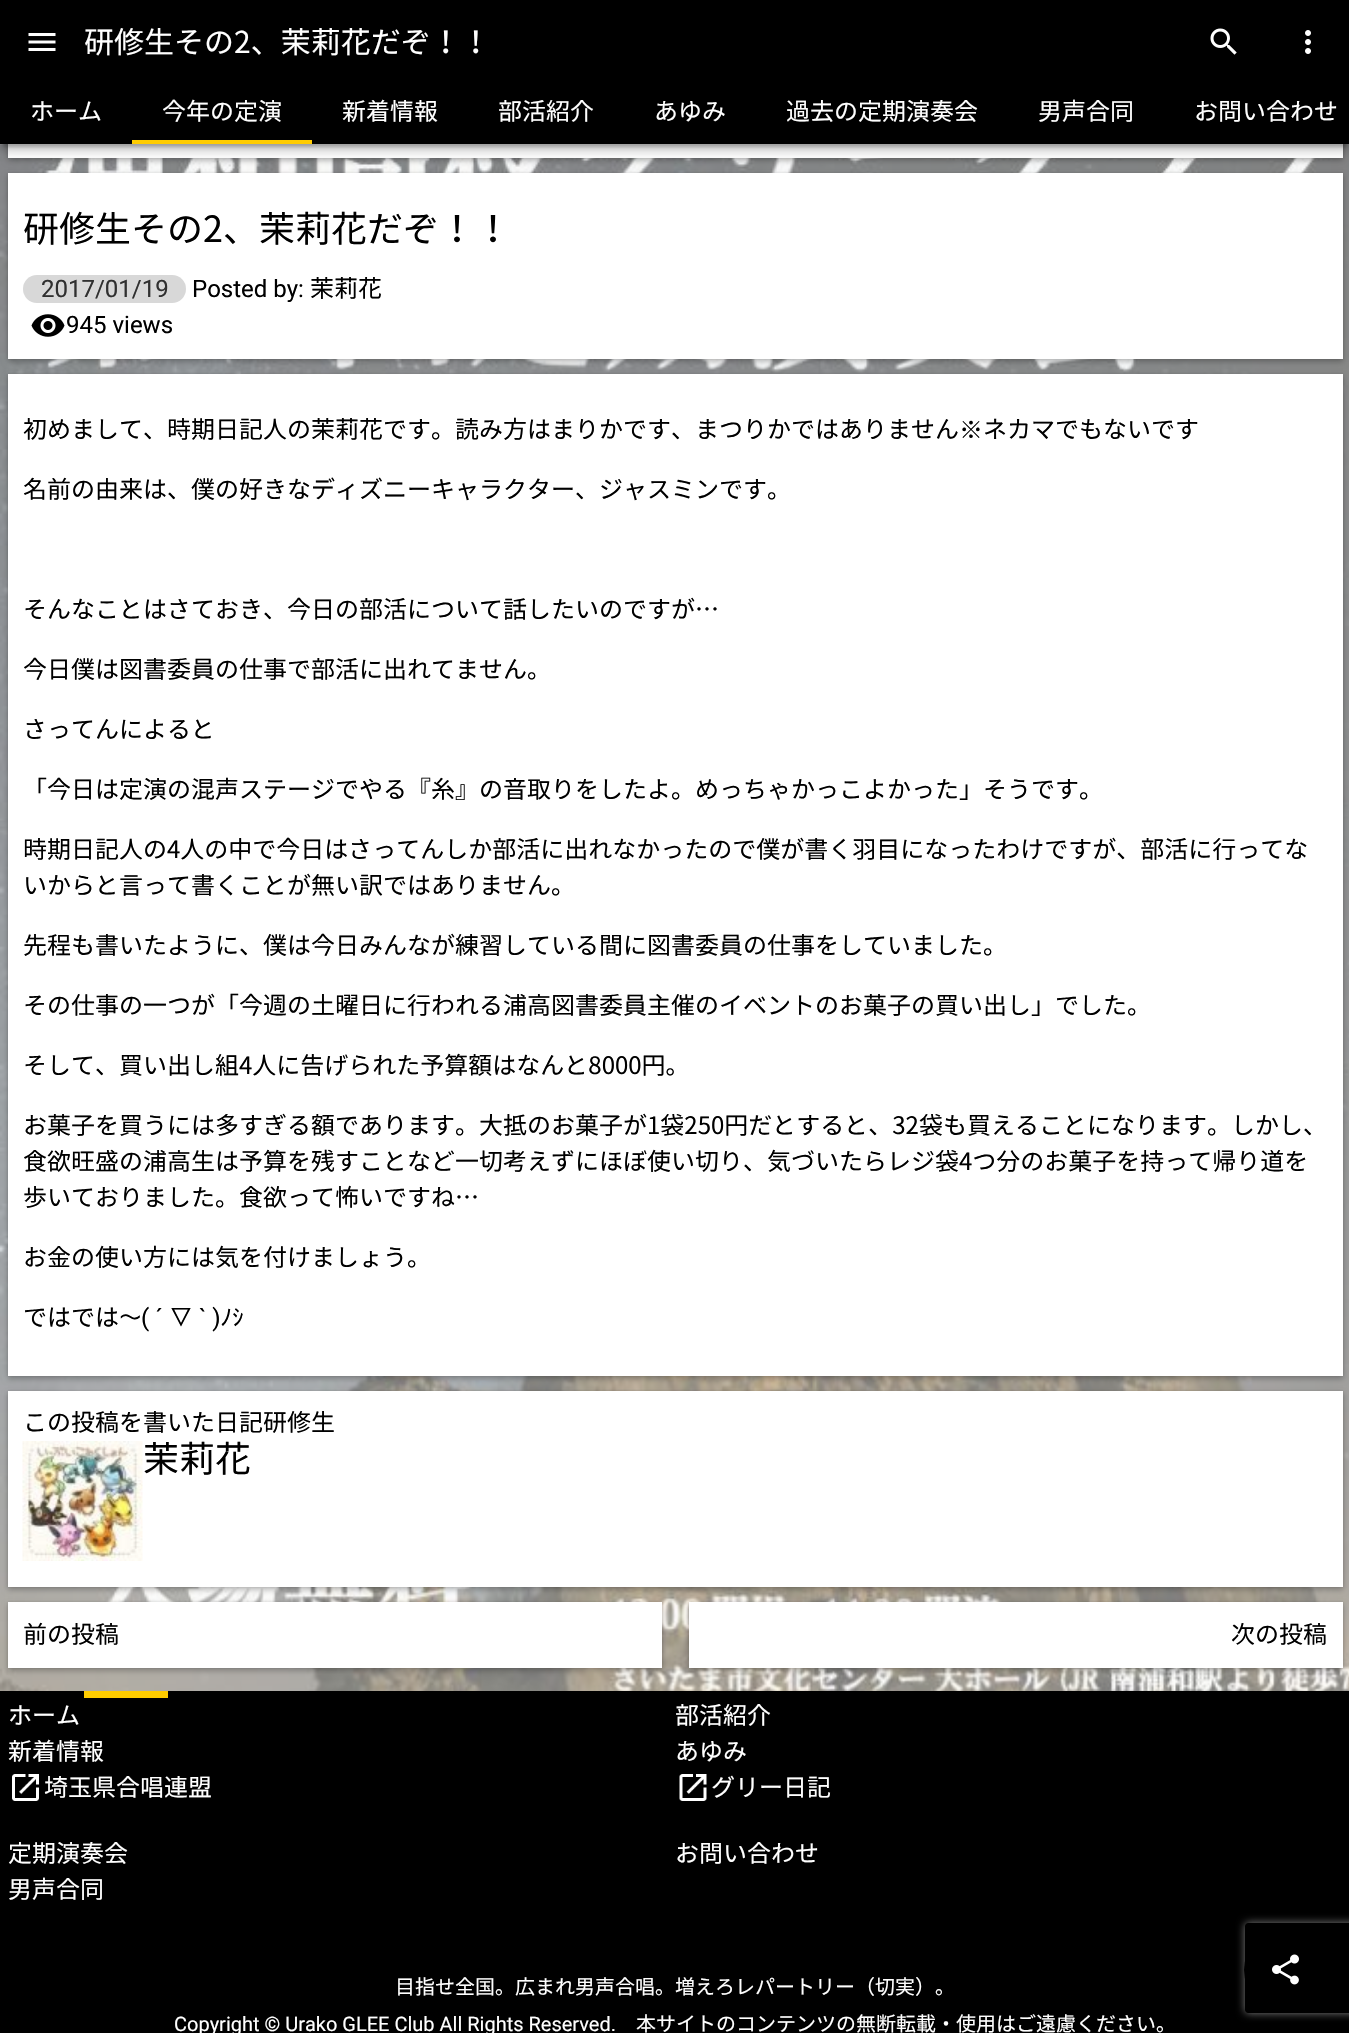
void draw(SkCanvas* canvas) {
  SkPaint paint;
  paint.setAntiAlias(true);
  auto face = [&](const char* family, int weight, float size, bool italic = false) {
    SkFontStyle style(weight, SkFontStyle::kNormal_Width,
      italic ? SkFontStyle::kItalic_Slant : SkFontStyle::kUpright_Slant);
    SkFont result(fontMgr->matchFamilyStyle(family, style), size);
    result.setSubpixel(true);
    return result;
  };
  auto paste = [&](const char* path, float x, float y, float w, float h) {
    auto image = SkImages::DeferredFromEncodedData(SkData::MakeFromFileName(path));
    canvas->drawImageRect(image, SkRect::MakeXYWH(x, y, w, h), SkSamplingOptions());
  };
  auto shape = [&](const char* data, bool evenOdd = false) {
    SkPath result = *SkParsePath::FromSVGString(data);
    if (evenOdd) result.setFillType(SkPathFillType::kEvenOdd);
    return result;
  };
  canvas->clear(0xfffbfbfb);
  paste("img/6.png", 0, 144, 1349, 1547);
  paint.setColor(0x3d000000);
  paint.setMaskFilter(SkMaskFilter::MakeBlur(kNormal_SkBlurStyle, 3));
  canvas->drawRect(SkRect::MakeXYWH(8, 110, 1335, 51), paint);
  paint.setMaskFilter(nullptr);
  paint.setColor(0x1f000000);
  paint.setMaskFilter(SkMaskFilter::MakeBlur(kNormal_SkBlurStyle, 1.5f));
  canvas->drawRect(SkRect::MakeXYWH(8, 107, 1335, 51), paint);
  paint.setMaskFilter(nullptr);
  paint.setColor(0xffffffff);
  canvas->drawRect(SkRect::MakeXYWH(8, 144, 1335, 14), paint);
  paint.setColor(0x33000000);
  paint.setMaskFilter(SkMaskFilter::MakeBlur(kNormal_SkBlurStyle, 1.5f));
  canvas->drawRect(SkRect::MakeXYWH(3, 9, 1344, 138), paint);
  paint.setMaskFilter(nullptr);
  paint.setColor(0x1f000000);
  paint.setMaskFilter(SkMaskFilter::MakeBlur(kNormal_SkBlurStyle, 7));
  canvas->drawRect(SkRect::MakeXYWH(-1, 2, 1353, 147), paint);
  paint.setMaskFilter(nullptr);
  paint.setColor(0x24000000);
  paint.setMaskFilter(SkMaskFilter::MakeBlur(kNormal_SkBlurStyle, 4));
  canvas->drawRect(SkRect::MakeXYWH(0, 6, 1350, 144), paint);
  paint.setMaskFilter(nullptr);
  paint.setColor(0xff000000);
  canvas->drawRect(SkRect::MakeXYWH(0, 0, 1349, 144), paint);
  paste("img/1.png", 28, 33, 28, 18);
  paste("img/2.png", 1210, 28, 27, 27);
  paste("img/3.png", 1305, 30, 6, 24);
  paint.setColor(0xffffcc00);
  canvas->drawRect(SkRect::MakeXYWH(132, 140, 180, 4), paint);
  paint.setColor(0x3d000000);
  paint.setMaskFilter(SkMaskFilter::MakeBlur(kNormal_SkBlurStyle, 3));
  canvas->drawRect(SkRect::MakeXYWH(8, 176, 1335, 186), paint);
  paint.setMaskFilter(nullptr);
  paint.setColor(0x1f000000);
  paint.setMaskFilter(SkMaskFilter::MakeBlur(kNormal_SkBlurStyle, 1.5f));
  canvas->drawRect(SkRect::MakeXYWH(8, 173, 1335, 186), paint);
  paint.setMaskFilter(nullptr);
  paint.setColor(0xffffffff);
  canvas->drawRect(SkRect::MakeXYWH(8, 173, 1335, 186), paint);
  paint.setColor(0xffd8d8d8);
  canvas->drawRoundRect(SkRect::MakeXYWH(23, 275, 163, 28), 14, 14, paint);
  paste("img/4.png", 31, 314, 34, 23);
  paint.setColor(0x3d000000);
  paint.setMaskFilter(SkMaskFilter::MakeBlur(kNormal_SkBlurStyle, 3));
  canvas->drawRect(SkRect::MakeXYWH(8, 377, 1335, 1002), paint);
  paint.setMaskFilter(nullptr);
  paint.setColor(0x1f000000);
  paint.setMaskFilter(SkMaskFilter::MakeBlur(kNormal_SkBlurStyle, 1.5f));
  canvas->drawRect(SkRect::MakeXYWH(8, 374, 1335, 1002), paint);
  paint.setMaskFilter(nullptr);
  paint.setColor(0xffffffff);
  canvas->drawRect(SkRect::MakeXYWH(8, 374, 1335, 1002), paint);
  paint.setColor(0x3d000000);
  paint.setMaskFilter(SkMaskFilter::MakeBlur(kNormal_SkBlurStyle, 3));
  canvas->drawRect(SkRect::MakeXYWH(8, 1394, 1335, 196), paint);
  paint.setMaskFilter(nullptr);
  paint.setColor(0x1f000000);
  paint.setMaskFilter(SkMaskFilter::MakeBlur(kNormal_SkBlurStyle, 1.5f));
  canvas->drawRect(SkRect::MakeXYWH(8, 1391, 1335, 196), paint);
  paint.setMaskFilter(nullptr);
  paint.setColor(0xffffffff);
  canvas->drawRect(SkRect::MakeXYWH(8, 1391, 1335, 196), paint);
  paste("img/5.png", 22, 1441, 121, 120);
  paint.setColor(0x3d000000);
  paint.setMaskFilter(SkMaskFilter::MakeBlur(kNormal_SkBlurStyle, 3));
  canvas->drawRect(SkRect::MakeXYWH(8, 1605, 654, 66), paint);
  paint.setMaskFilter(nullptr);
  paint.setColor(0x1f000000);
  paint.setMaskFilter(SkMaskFilter::MakeBlur(kNormal_SkBlurStyle, 1.5f));
  canvas->drawRect(SkRect::MakeXYWH(8, 1602, 654, 66), paint);
  paint.setMaskFilter(nullptr);
  paint.setColor(0xffffffff);
  canvas->drawRect(SkRect::MakeXYWH(8, 1602, 654, 66), paint);
  paint.setColor(0x3d000000);
  paint.setMaskFilter(SkMaskFilter::MakeBlur(kNormal_SkBlurStyle, 3));
  canvas->drawRect(SkRect::MakeXYWH(689, 1605, 654, 66), paint);
  paint.setMaskFilter(nullptr);
  paint.setColor(0x1f000000);
  paint.setMaskFilter(SkMaskFilter::MakeBlur(kNormal_SkBlurStyle, 1.5f));
  canvas->drawRect(SkRect::MakeXYWH(689, 1602, 654, 66), paint);
  paint.setMaskFilter(nullptr);
  {
    const struct { float x, y, w, h; SkColor color; } items[] = {
      {689, 1602, 654, 66, 0xffffffff},
      {0, 1691, 1349, 342, 0xff000000},
      {84, 1691, 84, 7, 0xffffcc00},
    };
    for (auto [x, y, w, h, color] : items) {
      paint.setColor(color);
      canvas->drawRect(SkRect::MakeXYWH(x, y, w, h), paint);
    }
  }
  paste("img/7.png", 12, 1774, 27, 27);
  paste("img/8.png", 679, 1774, 28, 27);
  canvas->save();
  canvas->clipPath(shape("M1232 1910H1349V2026H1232ZM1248 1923H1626C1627.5 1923 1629 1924.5 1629 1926V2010C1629 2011.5 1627.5 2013 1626 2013H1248C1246.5 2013 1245 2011.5 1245 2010V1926C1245 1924.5 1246.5 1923 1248 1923Z", true), true);
  paint.setColor(0xff808080);
  paint.setMaskFilter(SkMaskFilter::MakeBlur(kNormal_SkBlurStyle, 4));
  canvas->drawRoundRect(SkRect::MakeXYWH(1245, 1923, 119, 90), 3, 3, paint);
  paint.setMaskFilter(nullptr);
  canvas->restore();
  paint.setColor(0xff000000);
  canvas->drawCircle(1286, 1970, 42, paint);
  paste("img/9.png", 1272, 1954, 27, 31);
  auto f0 = face("Noto Sans JP", 400, 30);
  paint.setColor(0xffffffff);
  canvas->drawString("研修生その2、茉莉花だぞ！！", 84, 53, f0, paint);
  auto f1 = face("Noto Sans JP", 400, 24);
  {
    const struct { const char* s; float x, y; } items[] = {
      {"ホーム", 30, 120},
      {"今年の定演", 162, 120},
      {"新着情報", 342, 120},
      {"部活紹介", 498, 120},
      {"あゆみ", 654, 120},
      {"過去の定期演奏会", 786, 120},
      {"男声合同", 1038, 120},
      {"お問い合わせ", 1194, 120},
    };
    for (auto [s, x, y] : items) {
      canvas->drawString(s, x, y, f1, paint);
    }
  }
  auto f2 = face("Noto Sans JP", 400, 36);
  paint.setColor(0xff000000);
  canvas->drawString("研修生その2、茉莉花だぞ！！", 23, 242, f2, paint);
  auto f3 = face("Roboto", 400, 24);
  paint.setColor(0xff303030);
  canvas->drawString("2017/01/19", 41, 297, f3, paint);
  paint.setColor(0xff000000);
  canvas->drawString("Posted by:", 192, 297, f3, paint);
  canvas->drawString("茉莉花", 310, 297, f1, paint);
  canvas->drawString("945 views", 66, 333, f3, paint);
  canvas->drawString("初めまして、時期日記人の茉莉花です。読み方はまりかです、まつりかではありません", 23, 438, f1, paint);
  auto f4 = face("WenQuanYi Zen Hei", 500, 24);
  canvas->drawString("※", 959, 438, f4, paint);
  {
    const struct { const char* s; float x, y; } items[] = {
      {"ネカマでもないです", 983, 438},
      {"名前の由来は、僕の好きなディズニーキャラクター、ジャスミンです。", 23, 498},
      {"そんなことはさておき、今日の部活について話したいのですが…", 23, 618},
      {"今日僕は図書委員の仕事で部活に出れてません。", 23, 678},
      {"さってんによると", 23, 738},
      {"「今日は定演の混声ステージでやる『糸』の音取りをしたよ。めっちゃかっこよかった」そうです。", 23, 798},
      {"時期日記人の4人の中で今日はさってんしか部活に出れなかったので僕が書く羽目になったわけですが、部活に行ってな", 23, 858},
      {"いからと言って書くことが無い訳ではありません。", 23, 894},
      {"先程も書いたように、僕は今日みんなが練習している間に図書委員の仕事をしていました。", 23, 954},
      {"その仕事の一つが「今週の土曜日に行われる浦高図書委員主催のイベントのお菓子の買い出し」でした。", 23, 1014},
      {"そして、買い出し組4人に告げられた予算額はなんと8000円。", 23, 1074},
      {"お菓子を買うには多すぎる額であります。大抵のお菓子が1袋250円だとすると、32袋も買えることになります。しかし、", 23, 1134},
      {"食欲旺盛の浦高生は予算を残すことなど一切考えずにほぼ使い切り、気づいたらレジ袋4つ分のお菓子を持って帰り道を", 23, 1170},
      {"歩いておりました。食欲って怖いですね…", 23, 1206},
      {"お金の使い方には気を付けましょう。", 23, 1266},
      {"ではでは", 23, 1326},
    };
    for (auto [s, x, y] : items) {
      canvas->drawString(s, x, y, f1, paint);
    }
  }
  auto f5 = face("IPAPGothic", 400, 24);
  canvas->drawString("～", 119, 1326, f5, paint);
  canvas->drawString("( ´", 141, 1326, f3, paint);
  canvas->drawString("▽", 169, 1326, f5, paint);
  canvas->drawString("` )", 199, 1326, f3, paint);
  canvas->drawString("ﾉｼ", 220, 1326, f5, paint);
  canvas->drawString("この投稿を書いた日記研修生", 23, 1431, f1, paint);
  canvas->drawString("茉莉花", 143, 1472, f2, paint);
  canvas->drawString("前の投稿", 23, 1643, f1, paint);
  canvas->drawString("次の投稿", 1231, 1643, f1, paint);
  paint.setColor(0xffffffff);
  {
    const struct { const char* s; float x, y; } items[] = {
      {"ホーム", 8, 1724},
      {"新着情報", 8, 1760},
      {"埼玉県合唱連盟", 44, 1796},
      {"部活紹介", 675, 1724},
      {"あゆみ", 675, 1760},
      {"グリー日記", 711, 1796},
      {"定期演奏会", 8, 1862},
      {"男声合同", 8, 1898},
      {"お問い合わせ", 675, 1862},
    };
    for (auto [s, x, y] : items) {
      canvas->drawString(s, x, y, f1, paint);
    }
  }
  auto f6 = face("Noto Sans JP", 400, 20);
  canvas->drawString("目指せ全国。広まれ男声合唱。増えろレパートリー（切実）。", 395, 1994, f6, paint);
  auto f7 = face("Roboto", 400, 20);
  canvas->drawString("Copyright © Urako GLEE Club All Rights Reserved.", 174, 2031, f7, paint);
  canvas->drawString("本サイトのコンテンツの無断転載・使用はご遠慮ください。", 636, 2031, f6, paint);
}
